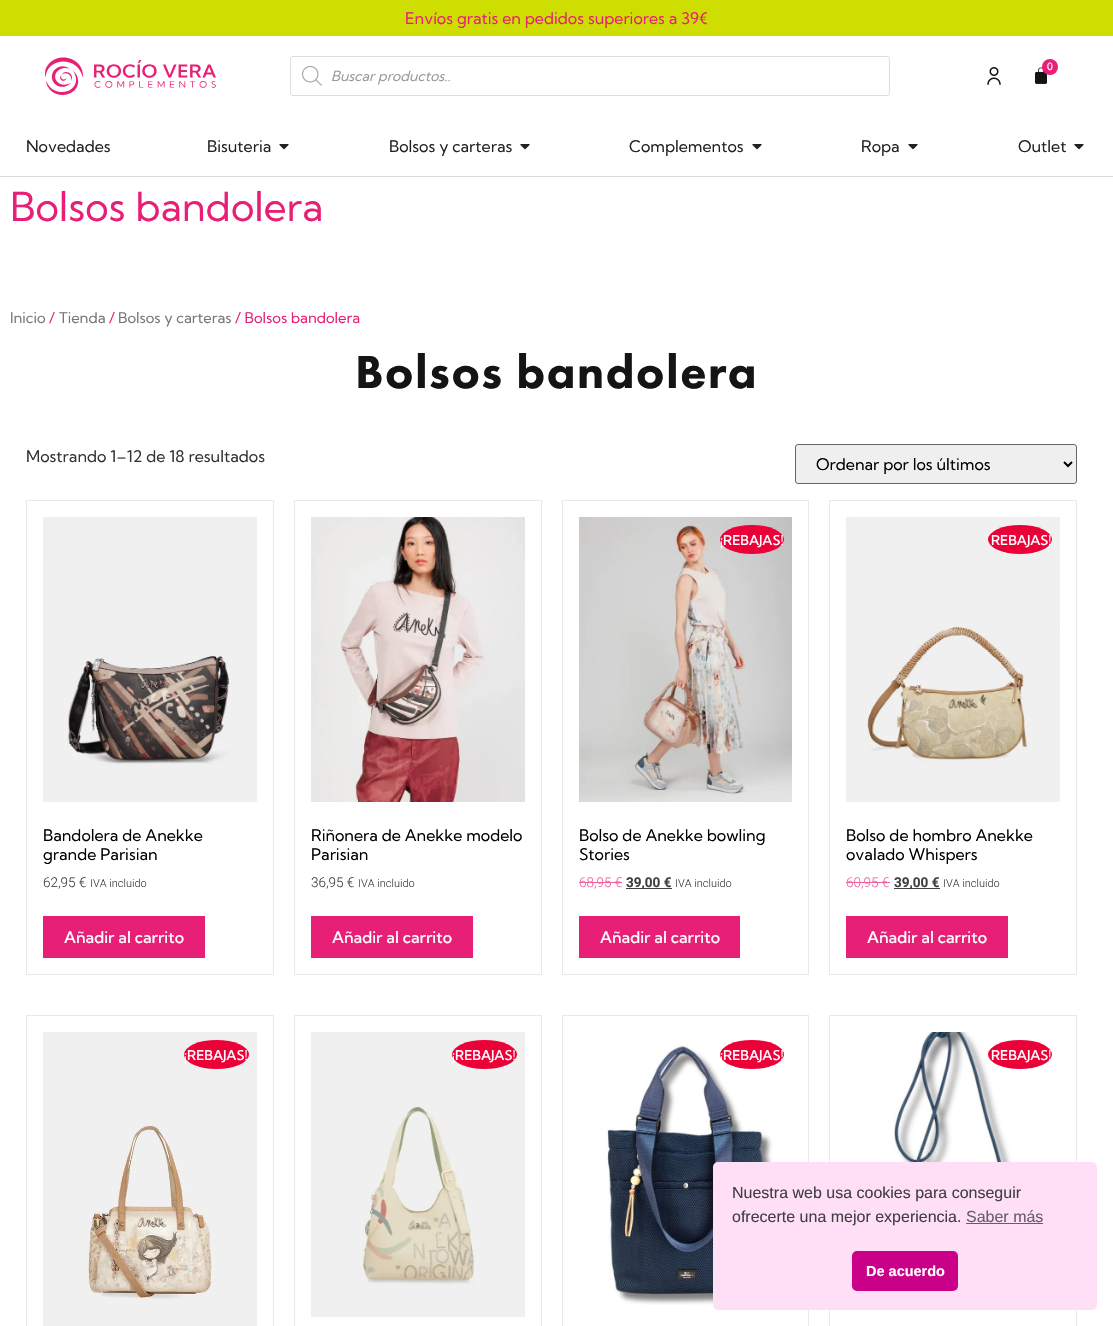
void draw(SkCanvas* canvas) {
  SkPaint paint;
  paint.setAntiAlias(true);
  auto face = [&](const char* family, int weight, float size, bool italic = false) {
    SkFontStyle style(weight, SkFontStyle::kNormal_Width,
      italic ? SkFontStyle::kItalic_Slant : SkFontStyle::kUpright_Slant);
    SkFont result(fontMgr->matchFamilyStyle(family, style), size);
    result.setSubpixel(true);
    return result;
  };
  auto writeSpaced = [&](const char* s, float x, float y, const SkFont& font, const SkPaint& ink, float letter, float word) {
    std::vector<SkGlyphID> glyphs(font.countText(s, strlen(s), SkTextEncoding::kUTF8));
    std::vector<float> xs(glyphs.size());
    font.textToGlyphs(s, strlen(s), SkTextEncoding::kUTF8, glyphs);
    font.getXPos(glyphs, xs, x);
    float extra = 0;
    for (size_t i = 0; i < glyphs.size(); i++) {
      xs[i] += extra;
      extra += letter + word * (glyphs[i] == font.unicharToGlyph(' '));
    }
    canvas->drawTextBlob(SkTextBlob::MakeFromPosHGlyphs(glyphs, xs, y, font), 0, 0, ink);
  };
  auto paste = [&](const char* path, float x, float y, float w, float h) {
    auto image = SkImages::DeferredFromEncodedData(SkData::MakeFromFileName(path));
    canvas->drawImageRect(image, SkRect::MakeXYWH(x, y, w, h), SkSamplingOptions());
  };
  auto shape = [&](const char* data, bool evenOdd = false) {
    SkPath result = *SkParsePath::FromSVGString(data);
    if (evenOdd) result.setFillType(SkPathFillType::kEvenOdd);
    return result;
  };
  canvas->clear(0xffffffff);
  paint.setColor(0xffcdde00);
  canvas->drawRect(SkRect::MakeXYWH(0, 0, 1113, 36), paint);
  paste("img/1.png", 45, 57, 171, 38);
  paste("img/2.png", 987, 67, 14, 18);
  paste("img/3.png", 1035, 67, 12, 17);
  paint.setColor(0xffe81f76);
  canvas->drawCircle(1050, 67, 8, paint);
  paint.setStroke(true);
  paint.setStrokeWidth(1);
  paint.setColor(0xffdddddd);
  canvas->drawRoundRect(SkRect::MakeXYWH(290.5f, 56.5f, 599, 39), 2.5f, 2.5f, paint);
  paste("img/4.png", 302, 66, 20, 20);
  paint.setStroke(false);
  paint.setColor(0xffd9d9d9);
  canvas->drawRect(SkRect::MakeXYWH(0, 176, 1113, 1), paint);
  paste("img/5.png", 279, 144, 10, 6);
  paste("img/5.png", 520, 144, 10, 6);
  paste("img/5.png", 752, 144, 10, 6);
  paste("img/5.png", 908, 144, 10, 6);
  paste("img/5.png", 1074, 144, 10, 6);
  paint.setColor(0xffefefef);
  canvas->drawRoundRect(SkRect::MakeXYWH(795.5f, 444.5f, 281, 39), 2.5f, 2.5f, paint);
  paint.setStroke(true);
  paint.setColor(0xff666666);
  canvas->drawRoundRect(SkRect::MakeXYWH(795.5f, 444.5f, 281, 39), 2.5f, 2.5f, paint);
  paint.setStrokeWidth(2);
  paint.setColor(0xff000000);
  canvas->drawPath(shape("M1064 462L1068 466L1072 462"), paint);
  paint.setStrokeWidth(1);
  paint.setColor(0xffe9e9e9);
  canvas->drawRect(SkRect::MakeXYWH(26.5f, 500.5f, 247, 474), paint);
  paste("img/6.png", 43, 517, 214, 285);
  paint.setStroke(false);
  paint.setColor(0xffe81f76);
  canvas->drawRect(SkRect::MakeXYWH(43, 916, 162, 42), paint);
  paint.setStroke(true);
  paint.setColor(0xffe9e9e9);
  canvas->drawRect(SkRect::MakeXYWH(294.5f, 500.5f, 247, 474), paint);
  paste("img/7.png", 311, 517, 214, 285);
  paint.setStroke(false);
  paint.setColor(0xffe81f76);
  canvas->drawRect(SkRect::MakeXYWH(311, 916, 162, 42), paint);
  paint.setStroke(true);
  paint.setColor(0xffe9e9e9);
  canvas->drawRect(SkRect::MakeXYWH(562.5f, 500.5f, 246, 474), paint);
  paste("img/8.png", 579, 517, 213, 285);
  paint.setStroke(false);
  paint.setColor(0xffeb0037);
  canvas->drawOval(SkRect::MakeXYWH(720, 525, 64, 29), paint);
  {
    const struct { float x, y, w, h; SkColor color; } items[] = {
      {579, 882, 43, 1, 0xffef629f},
      {626, 888, 46, 1, 0xff403f43},
      {579, 916, 161, 42, 0xffe81f76},
    };
    for (auto [x, y, w, h, color] : items) {
      paint.setColor(color);
      canvas->drawRect(SkRect::MakeXYWH(x, y, w, h), paint);
    }
  }
  paint.setStroke(true);
  paint.setColor(0xffe9e9e9);
  canvas->drawRect(SkRect::MakeXYWH(829.5f, 500.5f, 247, 474), paint);
  paste("img/9.png", 846, 517, 214, 285);
  paint.setStroke(false);
  paint.setColor(0xffeb0037);
  canvas->drawOval(SkRect::MakeXYWH(988, 525, 64, 29), paint);
  {
    const struct { float x, y, w, h; SkColor color; } items[] = {
      {846, 882, 44, 1, 0xffef629f},
      {894, 888, 46, 1, 0xff403f43},
      {846, 916, 162, 42, 0xffe81f76},
    };
    for (auto [x, y, w, h, color] : items) {
      paint.setColor(color);
      canvas->drawRect(SkRect::MakeXYWH(x, y, w, h), paint);
    }
  }
  paint.setStroke(true);
  paint.setColor(0xffe9e9e9);
  canvas->drawRect(SkRect::MakeXYWH(26.5f, 1015.5f, 247, 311), paint);
  paste("img/10.png", 43, 1032, 214, 294);
  paint.setStroke(false);
  paint.setColor(0xffeb0037);
  canvas->drawOval(SkRect::MakeXYWH(184, 1040, 65, 29), paint);
  paint.setStroke(true);
  paint.setColor(0xffe9e9e9);
  canvas->drawRect(SkRect::MakeXYWH(294.5f, 1015.5f, 247, 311), paint);
  paste("img/11.png", 311, 1032, 214, 285);
  paint.setStroke(false);
  paint.setColor(0xffeb0037);
  canvas->drawOval(SkRect::MakeXYWH(452, 1040, 65, 29), paint);
  paint.setStroke(true);
  paint.setColor(0xffe9e9e9);
  canvas->drawRect(SkRect::MakeXYWH(562.5f, 1015.5f, 246, 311), paint);
  paste("img/12.png", 606, 1045, 168, 260);
  paint.setStroke(false);
  paint.setColor(0xffeb0037);
  canvas->drawOval(SkRect::MakeXYWH(720, 1040, 64, 29), paint);
  paint.setStroke(true);
  paint.setColor(0xffe9e9e9);
  canvas->drawRect(SkRect::MakeXYWH(829.5f, 1015.5f, 247, 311), paint);
  paste("img/13.png", 890, 1032, 130, 130);
  paint.setStroke(false);
  paint.setColor(0xffeb0037);
  canvas->drawOval(SkRect::MakeXYWH(988, 1040, 64, 29), paint);
  paint.setColor(0xffffdff5);
  canvas->drawRoundRect(SkRect::MakeXYWH(713, 1162, 384, 148), 5, 5, paint);
  paint.setColor(0xff665f67);
  canvas->drawRect(SkRect::MakeXYWH(966, 1223, 77, 1), paint);
  paint.setColor(0xffca0088);
  canvas->drawRoundRect(SkRect::MakeXYWH(852, 1251, 106, 40), 5, 5, paint);
  auto f0 = face("Kumbh Sans", 400, 16);
  paint.setColor(0xffe81f76);
  canvas->drawString("Envíos gratis en pedidos superiores a 39€", 405, 24, f0, paint);
  auto f1 = face("Kumbh Sans", 400, 10);
  paint.setColor(0xffffffff);
  canvas->drawString("0", 1047, 70, f1, paint);
  auto f2 = face("Kumbh Sans", 400, 14, true);
  paint.setColor(0xff999999);
  canvas->drawString("Buscar productos..", 331, 81, f2, paint);
  paint.setColor(0xff1f2124);
  {
    const struct { const char* s; float x, y; } items[] = {
      {"Novedades", 26, 152},
      {"Bisuteria", 207, 152},
      {"Bolsos y carteras", 389, 152},
      {"Complementos", 629, 152},
      {"Ropa", 861, 152},
      {"Outlet", 1018, 152},
    };
    for (auto [s, x, y] : items) {
      canvas->drawString(s, x, y, f0, paint);
    }
  }
  auto f3 = face("Kumbh Sans", 400, 40);
  paint.setColor(0xffe81f76);
  canvas->drawString("Bolsos bandolera", 10, 221, f3, paint);
  auto f4 = face("Kumbh Sans", 400, 14.75f);
  paint.setColor(0xff767676);
  canvas->drawString("Inicio", 10, 323, f4, paint);
  paint.setColor(0xffe81f76);
  canvas->drawString("/", 49, 323, f4, paint);
  paint.setColor(0xff767676);
  canvas->drawString("Tienda", 59, 323, f4, paint);
  paint.setColor(0xffe81f76);
  canvas->drawString("/", 109, 323, f4, paint);
  paint.setColor(0xff767676);
  canvas->drawString("Bolsos y carteras", 118, 323, f4, paint);
  paint.setColor(0xffe81f76);
  canvas->drawString("/ Bolsos bandolera", 235, 323, f4, paint);
  auto f5 = face("Futura PT", 900, 48);
  paint.setColor(0xff141414);
  writeSpaced("Bolsos bandolera", 355, 388, f5, paint, 1.5f, 0);
  paint.setColor(0xff333333);
  canvas->drawString("Mostrando 1–12 de 18 resultados", 26, 462, f0, paint);
  paint.setColor(0xff000000);
  {
    const struct { const char* s; float x, y; } items[] = {
      {"Ordenar por los últimos", 816, 470},
      {"Bandolera de Anekke", 43, 841},
      {"grande Parisian", 43, 860},
    };
    for (auto [s, x, y] : items) {
      canvas->drawString(s, x, y, f0, paint);
    }
  }
  auto f6 = face("Roboto", 300, 13.5f);
  paint.setColor(0xff403f43);
  canvas->drawString("62,95 €", 43, 887, f6, paint);
  auto f7 = face("Roboto", 300, 11);
  canvas->drawString("IVA incluido", 90, 887, f7, paint);
  auto f8 = face("Kumbh Sans", 500, 16);
  paint.setColor(0xffffffff);
  canvas->drawString("Añadir al carrito", 64, 943, f8, paint);
  paint.setColor(0xff000000);
  canvas->drawString("Riñonera de Anekke modelo", 311, 841, f0, paint);
  canvas->drawString("Parisian", 311, 860, f0, paint);
  paint.setColor(0xff403f43);
  canvas->drawString("36,95 €", 311, 887, f6, paint);
  canvas->drawString("IVA incluido", 358, 887, f7, paint);
  paint.setColor(0xffffffff);
  canvas->drawString("Añadir al carrito", 332, 943, f8, paint);
  auto f9 = face("Kumbh Sans", 500, 13.5f);
  canvas->drawString("¡REBAJAS!", 720, 545, f9, paint);
  paint.setColor(0xff000000);
  canvas->drawString("Bolso de Anekke bowling", 579, 841, f0, paint);
  canvas->drawString("Stories", 579, 860, f0, paint);
  paint.setColor(0xffef629f);
  canvas->drawString("68,95 €", 579, 887, f6, paint);
  auto f10 = face("Roboto", 700, 13.5f);
  paint.setColor(0xff403f43);
  canvas->drawString("39,00 €", 626, 887, f10, paint);
  canvas->drawString("IVA incluido", 675, 887, f7, paint);
  paint.setColor(0xffffffff);
  canvas->drawString("Añadir al carrito", 600, 943, f8, paint);
  canvas->drawString("REBAJAS!", 991, 545, f9, paint);
  paint.setColor(0xff000000);
  canvas->drawString("Bolso de hombro Anekke", 846, 841, f0, paint);
  canvas->drawString("ovalado Whispers", 846, 860, f0, paint);
  paint.setColor(0xffef629f);
  canvas->drawString("60,95 €", 846, 887, f6, paint);
  paint.setColor(0xff403f43);
  canvas->drawString("39,00 €", 894, 887, f10, paint);
  canvas->drawString("IVA incluido", 943, 887, f7, paint);
  paint.setColor(0xffffffff);
  canvas->drawString("Añadir al carrito", 867, 943, f8, paint);
  {
    const struct { const char* s; float x, y; } items[] = {
      {"¡REBAJAS!", 184, 1060},
      {"¡REBAJAS!", 452, 1060},
      {"¡REBAJAS!", 720, 1060},
      {"REBAJAS!", 991, 1060},
    };
    for (auto [s, x, y] : items) {
      canvas->drawString(s, x, y, f9, paint);
    }
  }
  auto f11 = face("Liberation Sans", 400, 16);
  paint.setColor(0xff403f43);
  canvas->drawString("Nuestra web usa cookies para conseguir", 732, 1198, f11, paint);
  canvas->drawString("ofrecerte una mejor experiencia.", 732, 1222, f11, paint);
  paint.setColor(0xff665f67);
  canvas->drawString("Saber más", 966, 1222, f11, paint);
  auto f12 = face("Liberation Sans", 700, 14.5f);
  paint.setColor(0xffffffff);
  canvas->drawString("De acuerdo", 866, 1276, f12, paint);
}
